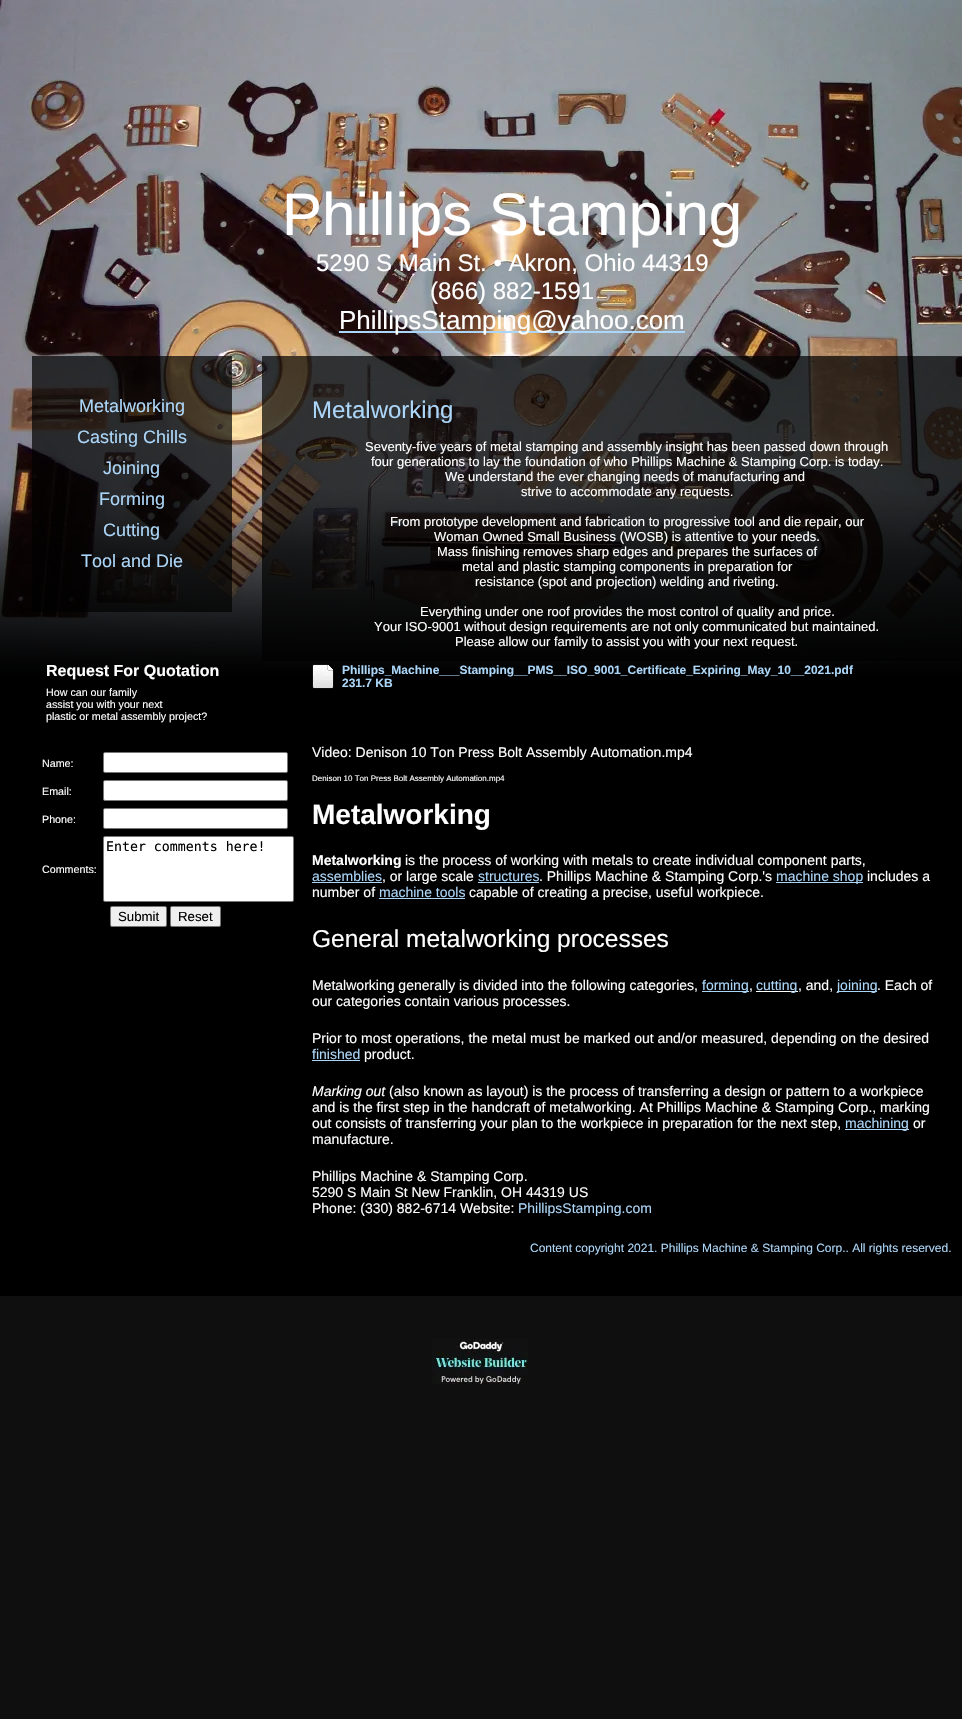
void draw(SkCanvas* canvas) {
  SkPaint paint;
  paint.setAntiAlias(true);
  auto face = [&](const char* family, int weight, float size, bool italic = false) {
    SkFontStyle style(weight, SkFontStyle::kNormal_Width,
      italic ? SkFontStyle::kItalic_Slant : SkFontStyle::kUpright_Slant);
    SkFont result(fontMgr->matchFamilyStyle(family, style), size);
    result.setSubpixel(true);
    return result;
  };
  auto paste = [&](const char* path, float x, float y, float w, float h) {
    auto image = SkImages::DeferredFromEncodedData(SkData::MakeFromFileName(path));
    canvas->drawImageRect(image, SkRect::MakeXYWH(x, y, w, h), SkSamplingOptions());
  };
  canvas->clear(0xff0f0f0f);
  paint.setColor(0xff000000);
  canvas->drawRect(SkRect::MakeXYWH(0, 683, 962, 613), paint);
  paste("img/1.png", 0, 0, 962, 672);
  paint.setColor(0xffacd6f8);
  canvas->drawRect(SkRect::MakeXYWH(339, 331, 346, 2), paint);
  paste("img/3.png", 0, 490, 962, 193);
  paint.setColor(0xb3000000);
  canvas->drawRect(SkRect::MakeXYWH(32, 356, 200, 256), paint);
  paint.setColor(0xffffffff);
  canvas->drawRoundRect(SkRect::MakeXYWH(103.5f, 752.5f, 184, 20), 1.5f, 1.5f, paint);
  paint.setStroke(true);
  paint.setStrokeWidth(1);
  paint.setColor(0xff767676);
  canvas->drawRoundRect(SkRect::MakeXYWH(103.5f, 752.5f, 184, 20), 1.5f, 1.5f, paint);
  paint.setStroke(false);
  paint.setColor(0xffffffff);
  canvas->drawRoundRect(SkRect::MakeXYWH(103.5f, 780.5f, 184, 20), 1.5f, 1.5f, paint);
  paint.setStroke(true);
  paint.setColor(0xff767676);
  canvas->drawRoundRect(SkRect::MakeXYWH(103.5f, 780.5f, 184, 20), 1.5f, 1.5f, paint);
  paint.setStroke(false);
  paint.setColor(0xffffffff);
  canvas->drawRoundRect(SkRect::MakeXYWH(103.5f, 808.5f, 184, 20), 1.5f, 1.5f, paint);
  paint.setStroke(true);
  paint.setColor(0xff767676);
  canvas->drawRoundRect(SkRect::MakeXYWH(103.5f, 808.5f, 184, 20), 1.5f, 1.5f, paint);
  paint.setStroke(false);
  paint.setColor(0xffffffff);
  canvas->drawRoundRect(SkRect::MakeXYWH(103.5f, 836.5f, 190, 65), 1.5f, 1.5f, paint);
  paint.setStroke(true);
  paint.setColor(0xff767676);
  canvas->drawRoundRect(SkRect::MakeXYWH(103.5f, 836.5f, 190, 65), 1.5f, 1.5f, paint);
  paint.setStroke(false);
  paint.setColor(0xffefefef);
  canvas->drawRoundRect(SkRect::MakeXYWH(110.5f, 906.5f, 56, 20), 1.5f, 1.5f, paint);
  paint.setStroke(true);
  paint.setColor(0xff767676);
  canvas->drawRoundRect(SkRect::MakeXYWH(110.5f, 906.5f, 56, 20), 1.5f, 1.5f, paint);
  paint.setStroke(false);
  paint.setColor(0xffefefef);
  canvas->drawRoundRect(SkRect::MakeXYWH(170.5f, 906.5f, 50, 20), 1.5f, 1.5f, paint);
  paint.setStroke(true);
  paint.setColor(0xff767676);
  canvas->drawRoundRect(SkRect::MakeXYWH(170.5f, 906.5f, 50, 20), 1.5f, 1.5f, paint);
  paint.setStroke(false);
  paint.setColor(0xb3000000);
  canvas->drawRect(SkRect::MakeXYWH(262, 356, 700, 305), paint);
  paste("img/2.png", 312, 664, 22, 25);
  {
    const struct { float x, y, w, h; SkColor color; } items[] = {
      {312, 882, 70, 1, 0xffacd6f8},
      {478, 882, 61, 1, 0xffacd6f8},
      {776, 882, 87, 1, 0xffacd6f8},
      {379, 898, 86, 1, 0xffacd6f8},
      {702, 991, 47, 1, 0xffacd6f8},
      {756, 991, 42, 1, 0xffffffff},
      {837, 991, 40, 1, 0xffacd6f8},
      {312, 1060, 48, 1, 0xffacd6f8},
      {845, 1129, 64, 1, 0xffacd6f8},
    };
    for (auto [x, y, w, h, color] : items) {
      paint.setColor(color);
      canvas->drawRect(SkRect::MakeXYWH(x, y, w, h), paint);
    }
  }
  paste("img/4.png", 432, 1339, 96, 45);
  auto f0 = face("Liberation Sans", 400, 60);
  paint.setColor(0xffffffff);
  canvas->drawString("Phillips Stamping", 282, 235, f0, paint);
  auto f1 = face("Liberation Sans", 400, 24);
  canvas->drawString("5290 S Main St. • Akron, Ohio 44319", 316, 271, f1, paint);
  canvas->drawString("(866) 882-1591", 430, 299, f1, paint);
  auto f2 = face("Liberation Sans", 400, 26);
  canvas->drawString("PhillipsStamping@yahoo.com", 339, 329, f2, paint);
  auto f3 = face("Liberation Sans", 400, 18);
  paint.setColor(0xffacd6f8);
  {
    const struct { const char* s; float x, y; } items[] = {
      {"Metalworking", 79, 412},
      {"Casting Chills", 77, 443},
      {"Joining", 103, 474},
      {"Forming", 99, 505},
      {"Cutting", 103, 536},
      {"Tool and Die", 81, 567},
    };
    for (auto [s, x, y] : items) {
      canvas->drawString(s, x, y, f3, paint);
    }
  }
  auto f4 = face("Liberation Sans", 700, 16);
  paint.setColor(0xffffffff);
  canvas->drawString("Request For Quotation", 46, 676, f4, paint);
  auto f5 = face("Liberation Sans", 400, 10.7f);
  {
    const struct { const char* s; float x, y; } items[] = {
      {"How can our family", 46, 696},
      {"assist you with your next", 46, 708},
      {"plastic or metal assembly project?", 46, 720},
      {"Name:", 42, 767},
      {"Email:", 42, 795},
      {"Phone:", 42, 823},
    };
    for (auto [s, x, y] : items) {
      canvas->drawString(s, x, y, f5, paint);
    }
  }
  auto f6 = face("DejaVu Sans Mono", 400, 13.25f);
  paint.setColor(0xff000000);
  canvas->drawString("Enter comments here!", 106, 851, f6, paint);
  paint.setColor(0xffffffff);
  canvas->drawString("Comments:", 42, 873, f5, paint);
  auto f7 = face("Liberation Sans", 400, 13.25f);
  paint.setColor(0xff000000);
  canvas->drawString("Submit", 118, 921, f7, paint);
  canvas->drawString("Reset", 178, 921, f7, paint);
  paint.setColor(0xffacd6f8);
  canvas->drawString("Metalworking", 312, 418, f1, paint);
  auto f8 = face("Liberation Sans", 400, 13);
  paint.setColor(0xffffffff);
  {
    const struct { const char* s; float x, y; } items[] = {
      {"Seventy-five years of metal stamping and assembly insight has been passed down through", 365, 451},
      {"four generations to lay the foundation of who Phillips Machine & Stamping Corp. is today.", 371, 466},
      {"We understand the ever changing needs of manufacturing and", 445, 481},
      {"strive to accommodate any requests.", 521, 496},
      {"From prototype development and fabrication to progressive tool and die repair, our", 390, 526},
      {"Woman Owned Small Business (WOSB) is attentive to your needs.", 434, 541},
      {"Mass finishing removes sharp edges and prepares the surfaces of", 437, 556},
      {"metal and plastic stamping components in preparation for", 462, 571},
      {"resistance (spot and projection) welding and riveting.", 475, 586},
      {"Everything under one roof provides the most control of quality and price.", 420, 616},
      {"Your ISO-9001 without design requirements are not only communicated but maintained.", 374, 631},
      {"Please allow our family to assist you with your next request.", 455, 646},
    };
    for (auto [s, x, y] : items) {
      canvas->drawString(s, x, y, f8, paint);
    }
  }
  auto f9 = face("Liberation Sans", 700, 12);
  paint.setColor(0xffacd6f8);
  canvas->drawString("Phillips_Machine___Stamping__PMS__ISO_9001_Certificate_Expiring_May_10__2021.pdf", 342, 674, f9, paint);
  canvas->drawString("231.7 KB", 342, 687, f9, paint);
  auto f10 = face("Liberation Sans", 400, 14);
  paint.setColor(0xffffffff);
  canvas->drawString("Video: Denison 10 Ton Press Bolt Assembly Automation.mp4", 312, 757, f10, paint);
  auto f11 = face("Liberation Sans", 400, 8);
  canvas->drawString("Denison 10 Ton Press Bolt Assembly Automation.mp4", 312, 781, f11, paint);
  auto f12 = face("Liberation Sans", 700, 28);
  canvas->drawString("Metalworking", 312, 824, f12, paint);
  auto f13 = face("Liberation Sans", 700, 14);
  canvas->drawString("Metalworking", 312, 865, f13, paint);
  canvas->drawString("is the process of working with metals to create individual component parts,", 405, 865, f10, paint);
  paint.setColor(0xffacd6f8);
  canvas->drawString("assemblies", 312, 881, f10, paint);
  paint.setColor(0xffffffff);
  canvas->drawString(", or large scale", 382, 881, f10, paint);
  paint.setColor(0xffacd6f8);
  canvas->drawString("structures", 478, 881, f10, paint);
  paint.setColor(0xffffffff);
  canvas->drawString(". Phillips Machine & Stamping Corp.'s", 539, 881, f10, paint);
  paint.setColor(0xffacd6f8);
  canvas->drawString("machine shop", 776, 881, f10, paint);
  paint.setColor(0xffffffff);
  canvas->drawString("includes a", 867, 881, f10, paint);
  canvas->drawString("number of", 312, 897, f10, paint);
  paint.setColor(0xffacd6f8);
  canvas->drawString("machine tools", 379, 897, f10, paint);
  paint.setColor(0xffffffff);
  canvas->drawString("capable of creating a precise, useful workpiece.", 469, 897, f10, paint);
  auto f14 = face("Liberation Sans", 400, 24.5f);
  canvas->drawString("General metalworking processes", 312, 947, f14, paint);
  canvas->drawString("Metalworking generally is divided into the following categories,", 312, 990, f10, paint);
  paint.setColor(0xffacd6f8);
  canvas->drawString("forming", 702, 990, f10, paint);
  paint.setColor(0xffffffff);
  canvas->drawString(",", 749, 990, f10, paint);
  paint.setColor(0xffacd6f8);
  canvas->drawString("cutting", 756, 990, f10, paint);
  paint.setColor(0xffffffff);
  canvas->drawString(", and,", 798, 990, f10, paint);
  paint.setColor(0xffacd6f8);
  canvas->drawString("joining", 837, 990, f10, paint);
  paint.setColor(0xffffffff);
  {
    const struct { const char* s; float x, y; } items[] = {
      {". Each of", 877, 990},
      {"our categories contain various processes.", 312, 1006},
      {"Prior to most operations, the metal must be marked out and/or measured, depending on the desired", 312, 1043},
    };
    for (auto [s, x, y] : items) {
      canvas->drawString(s, x, y, f10, paint);
    }
  }
  paint.setColor(0xffacd6f8);
  canvas->drawString("finished", 312, 1059, f10, paint);
  paint.setColor(0xffffffff);
  canvas->drawString("product.", 364, 1059, f10, paint);
  auto f15 = face("Liberation Sans", 400, 14, true);
  canvas->drawString("Marking out", 312, 1096, f15, paint);
  {
    const struct { const char* s; float x, y; } items[] = {
      {"(also known as layout) is the process of transferring a design or pattern to a workpiece", 389, 1096},
      {"and is the first step in the handcraft of metalworking. At Phillips Machine & Stamping Corp., marking", 312, 1112},
      {"out consists of transferring your plan to the workpiece in preparation for the next step,", 312, 1128},
    };
    for (auto [s, x, y] : items) {
      canvas->drawString(s, x, y, f10, paint);
    }
  }
  paint.setColor(0xffacd6f8);
  canvas->drawString("machining", 845, 1128, f10, paint);
  paint.setColor(0xffffffff);
  {
    const struct { const char* s; float x, y; } items[] = {
      {"or", 913, 1128},
      {"manufacture.", 312, 1144},
      {"Phillips Machine & Stamping Corp.", 312, 1181},
      {"5290 S Main St New Franklin, OH 44319 US", 312, 1197},
      {"Phone: (330) 882-6714 Website:", 312, 1213},
    };
    for (auto [s, x, y] : items) {
      canvas->drawString(s, x, y, f10, paint);
    }
  }
  paint.setColor(0xffacd6f8);
  canvas->drawString("PhillipsStamping.com", 518, 1213, f10, paint);
  auto f16 = face("Liberation Sans", 400, 12);
  canvas->drawString("Content copyright 2021. Phillips Machine & Stamping Corp.. All rights reserved.", 530, 1252, f16, paint);
}
